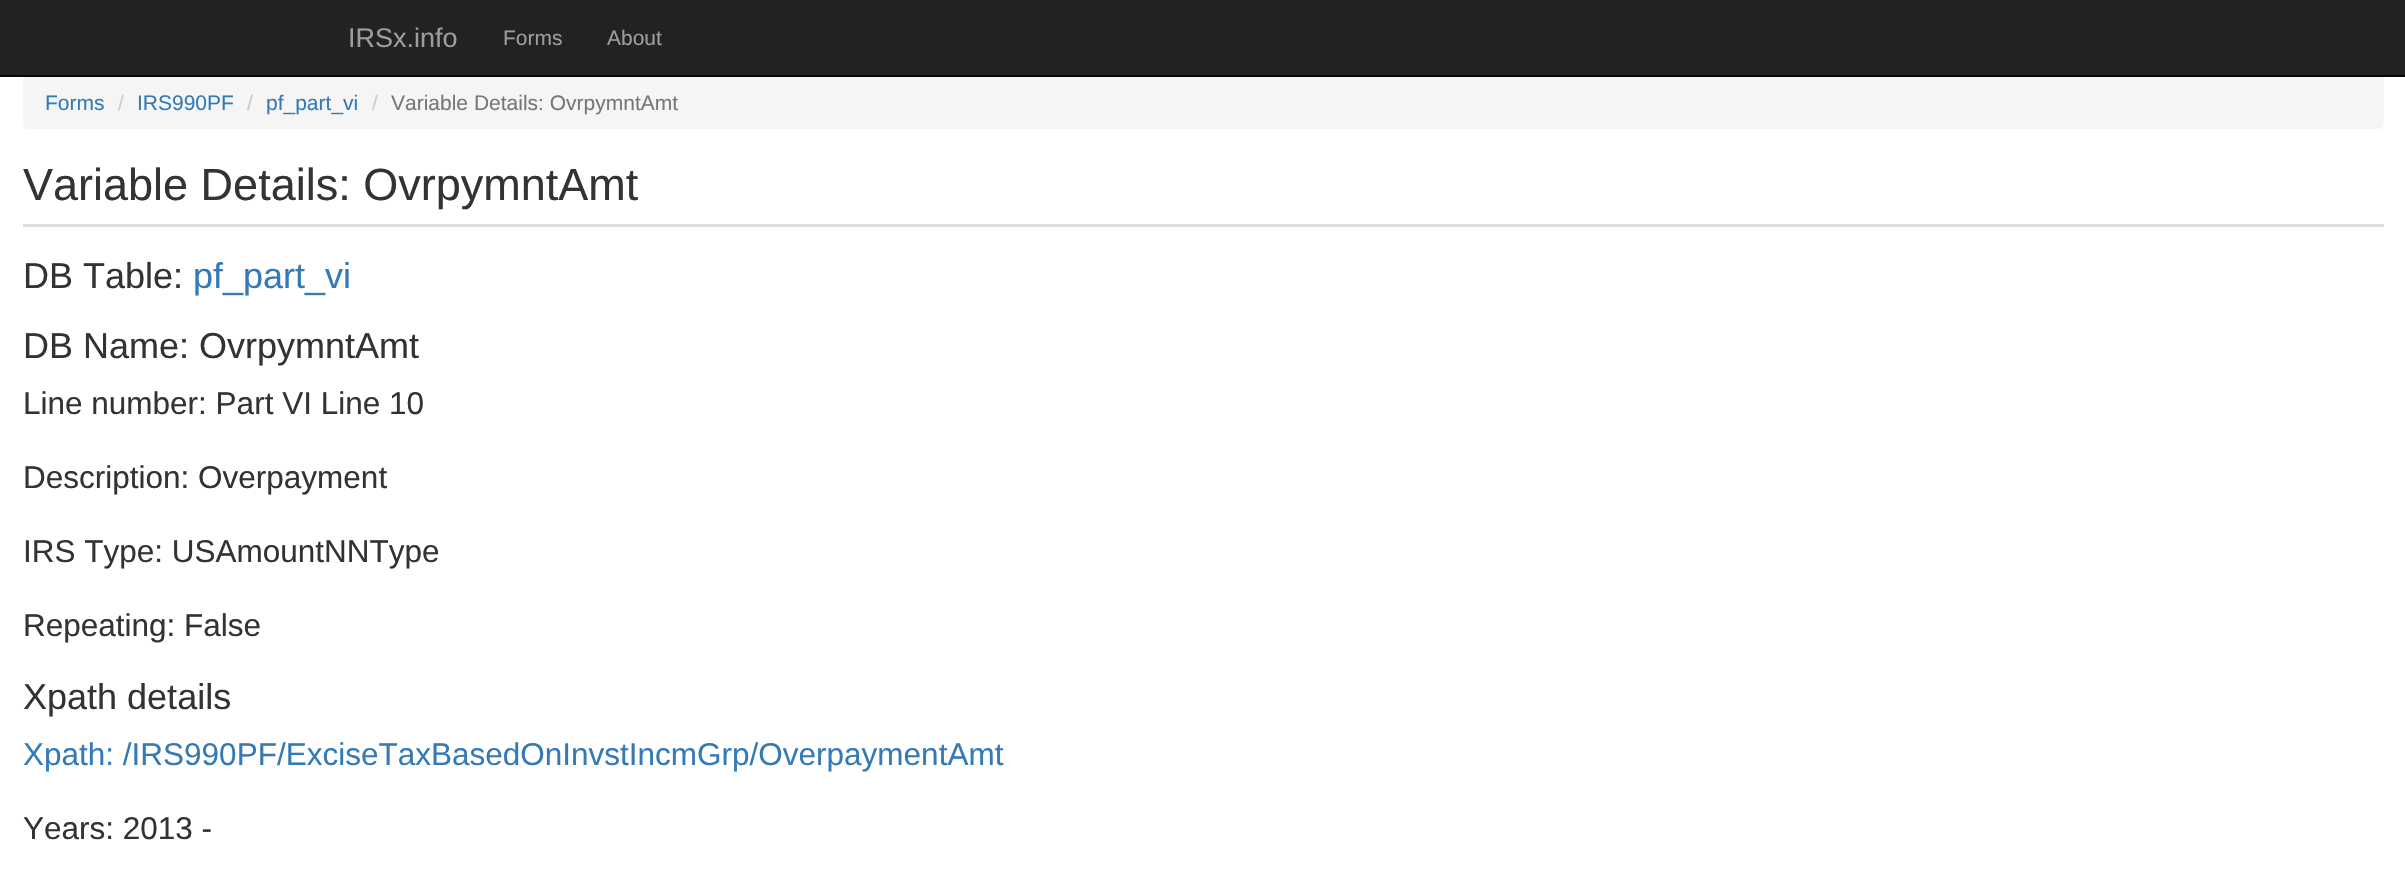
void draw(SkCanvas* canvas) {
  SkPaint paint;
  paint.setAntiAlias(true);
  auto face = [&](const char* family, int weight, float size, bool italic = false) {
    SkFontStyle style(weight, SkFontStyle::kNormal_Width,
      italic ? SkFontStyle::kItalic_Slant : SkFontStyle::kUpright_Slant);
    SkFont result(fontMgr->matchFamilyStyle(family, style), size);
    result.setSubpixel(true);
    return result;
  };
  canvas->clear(0xffffffff);
  paint.setColor(0xff222222);
  canvas->drawRect(SkRect::MakeXYWH(0, 0, 2405, 75), paint);
  paint.setColor(0xfff5f5f5);
  canvas->drawRoundRect(SkRect::MakeXYWH(23, 75, 2361, 54), 6, 6, paint);
  paint.setColor(0xff080808);
  canvas->drawRect(SkRect::MakeXYWH(0, 75, 2405, 2), paint);
  paint.setColor(0xffdddddd);
  canvas->drawRect(SkRect::MakeXYWH(23, 224, 2361, 3), paint);
  auto f0 = face("Liberation Sans", 400, 27);
  paint.setColor(0xff9d9d9d);
  canvas->drawString("IRSx.info", 348, 47, f0, paint);
  auto f1 = face("Liberation Sans", 400, 21);
  canvas->drawString("Forms", 503, 45, f1, paint);
  canvas->drawString("About", 607, 45, f1, paint);
  paint.setColor(0xff337ab7);
  canvas->drawString("Forms", 45, 110, f1, paint);
  paint.setColor(0xffcccccc);
  canvas->drawString("/", 118, 110, f1, paint);
  paint.setColor(0xff337ab7);
  canvas->drawString("IRS990PF", 137, 110, f1, paint);
  paint.setColor(0xffcccccc);
  canvas->drawString("/", 247, 110, f1, paint);
  paint.setColor(0xff337ab7);
  canvas->drawString("pf_part_vi", 266, 110, f1, paint);
  paint.setColor(0xffcccccc);
  canvas->drawString("/", 372, 110, f1, paint);
  paint.setColor(0xff777777);
  canvas->drawString("Variable Details: OvrpymntAmt", 391, 110, f1, paint);
  auto f2 = face("Liberation Sans", 400, 45);
  paint.setColor(0xff333333);
  canvas->drawString("Variable Details: OvrpymntAmt", 23, 200, f2, paint);
  auto f3 = face("Liberation Sans", 400, 36);
  canvas->drawString("DB Table:", 23, 288, f3, paint);
  paint.setColor(0xff337ab7);
  canvas->drawString("pf_part_vi", 193, 288, f3, paint);
  paint.setColor(0xff333333);
  canvas->drawString("DB Name: OvrpymntAmt", 23, 358, f3, paint);
  auto f4 = face("Liberation Sans", 400, 31.5f);
  {
    const struct { const char* s; float x, y; } items[] = {
      {"Line number: Part VI Line 10", 23, 414},
      {"Description: Overpayment", 23, 488},
      {"IRS Type: USAmountNNType", 23, 562},
      {"Repeating: False", 23, 636},
    };
    for (auto [s, x, y] : items) {
      canvas->drawString(s, x, y, f4, paint);
    }
  }
  canvas->drawString("Xpath details", 23, 709, f3, paint);
  paint.setColor(0xff337ab7);
  canvas->drawString("Xpath: /IRS990PF/ExciseTaxBasedOnInvstIncmGrp/OverpaymentAmt", 23, 765, f4, paint);
  paint.setColor(0xff333333);
  canvas->drawString("Years: 2013 -", 23, 839, f4, paint);
}
